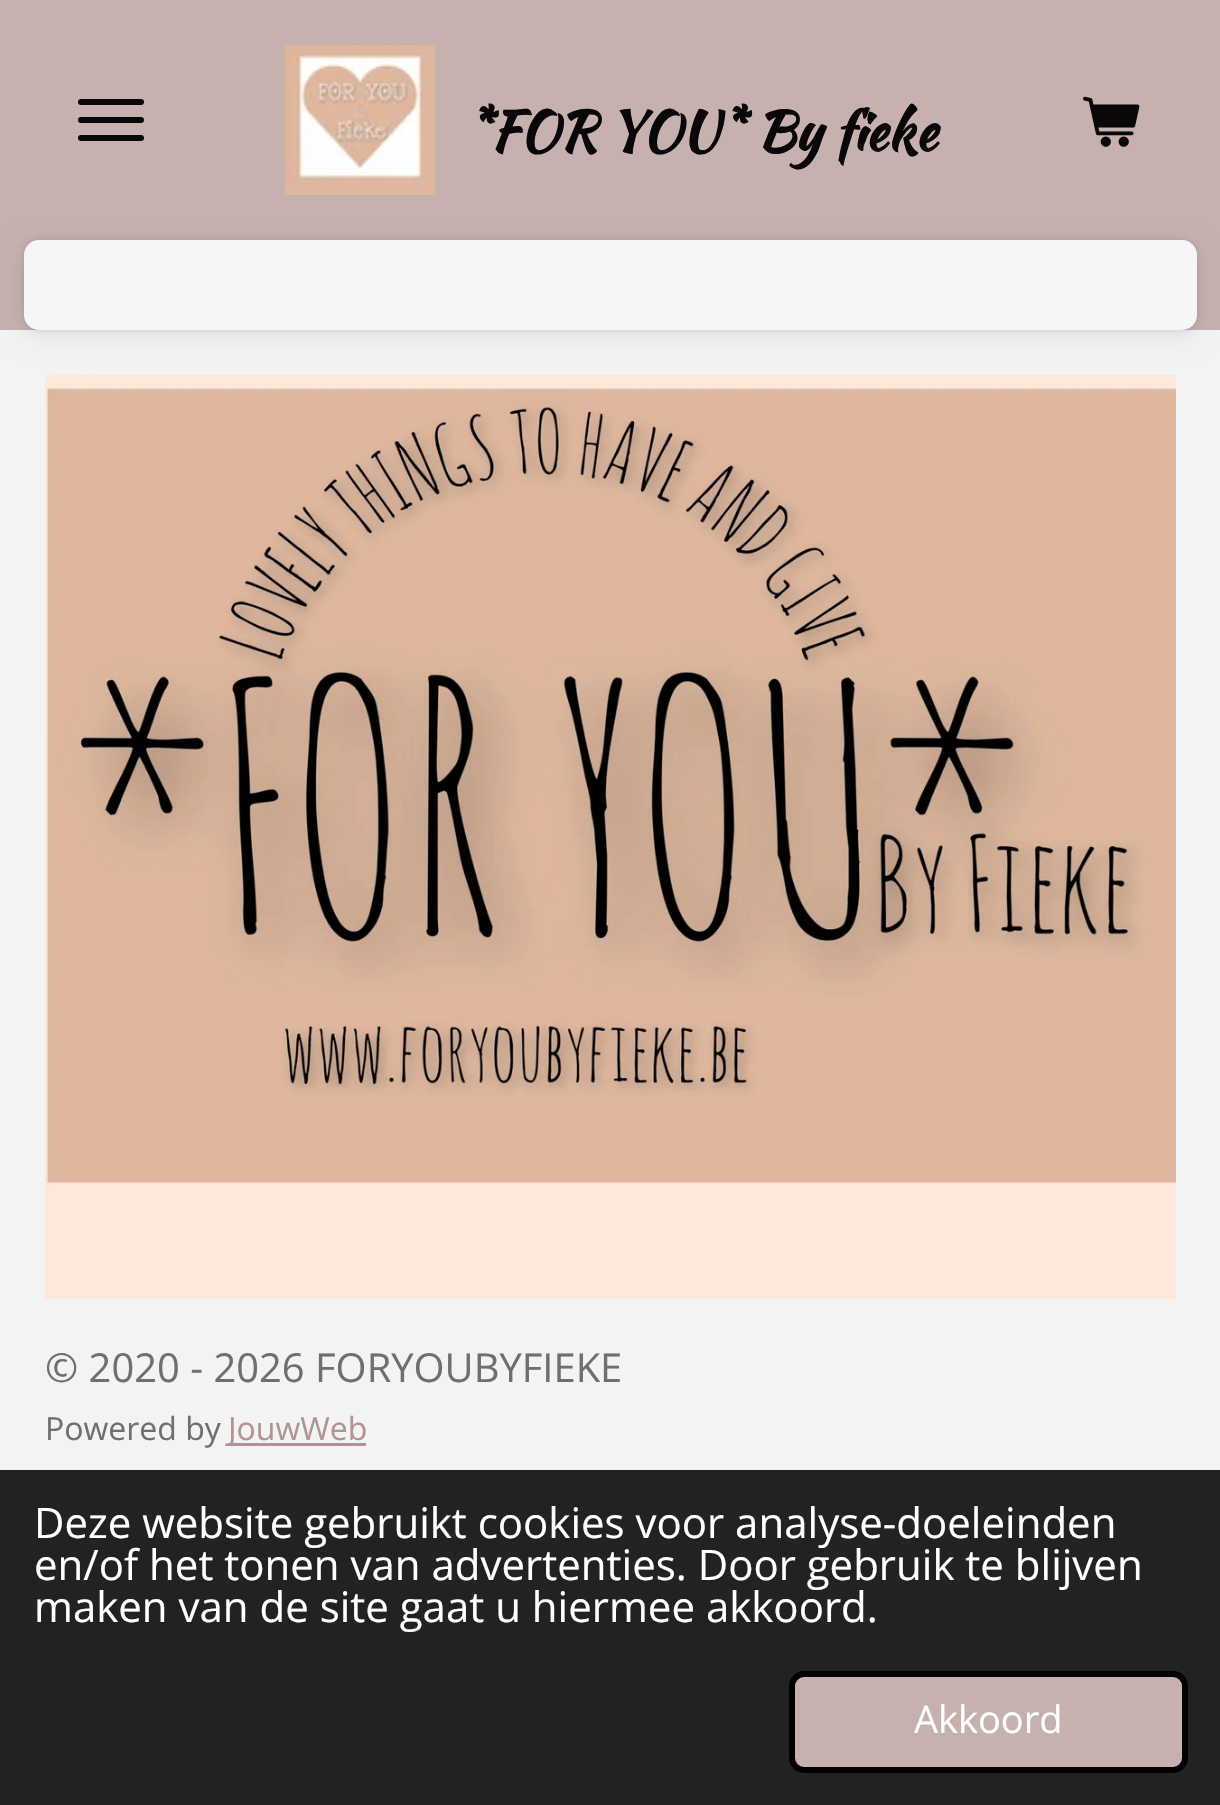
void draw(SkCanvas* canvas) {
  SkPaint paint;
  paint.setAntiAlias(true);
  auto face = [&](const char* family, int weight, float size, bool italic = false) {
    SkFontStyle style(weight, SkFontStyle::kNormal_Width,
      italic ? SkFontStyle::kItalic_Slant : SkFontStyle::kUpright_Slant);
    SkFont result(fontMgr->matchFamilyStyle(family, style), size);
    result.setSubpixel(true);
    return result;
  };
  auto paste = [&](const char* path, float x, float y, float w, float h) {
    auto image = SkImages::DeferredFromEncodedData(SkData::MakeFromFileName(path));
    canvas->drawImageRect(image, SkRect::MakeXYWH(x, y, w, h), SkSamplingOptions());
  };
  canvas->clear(0xfff4f3f3);
  paint.setColor(0xffc6b1af);
  canvas->drawRect(SkRect::MakeXYWH(0, 0, 1220, 330), paint);
  paint.setColor(0xff090707);
  canvas->drawRoundRect(SkRect::MakeXYWH(78, 117, 66, 6), 3, 3, paint);
  canvas->drawRoundRect(SkRect::MakeXYWH(78, 99, 66, 6), 3, 3, paint);
  canvas->drawRoundRect(SkRect::MakeXYWH(78, 135, 66, 6), 3, 3, paint);
  paste("img/1.png", 285, 45, 150, 150);
  paste("img/2.png", 1083, 96, 57, 51);
  paint.setColor(0x1a000000);
  paint.setMaskFilter(SkMaskFilter::MakeBlur(kNormal_SkBlurStyle, 3));
  canvas->drawRoundRect(SkRect::MakeXYWH(24, 240, 1173, 90), 15, 15, paint);
  paint.setMaskFilter(nullptr);
  paint.setColor(0x12000000);
  paint.setMaskFilter(SkMaskFilter::MakeBlur(kNormal_SkBlurStyle, 12));
  canvas->drawRoundRect(SkRect::MakeXYWH(24, 246, 1173, 90), 15, 15, paint);
  paint.setMaskFilter(nullptr);
  paint.setColor(0xfff6f6f6);
  canvas->drawRoundRect(SkRect::MakeXYWH(24, 240, 1173, 90), 15, 15, paint);
  paste("img/3.png", 45, 375, 1131, 924);
  paint.setColor(0xffb19491);
  canvas->drawRect(SkRect::MakeXYWH(228, 1443, 138, 3), paint);
  paint.setColor(0xff222222);
  canvas->drawRect(SkRect::MakeXYWH(0, 1470, 1220, 335), paint);
  paint.setColor(0xffc6b1af);
  canvas->drawRoundRect(SkRect::MakeXYWH(792, 1674, 393, 96), 12, 12, paint);
  paint.setStroke(true);
  paint.setStrokeWidth(6);
  paint.setColor(0xff000000);
  canvas->drawRoundRect(SkRect::MakeXYWH(792, 1674, 393, 96), 12, 12, paint);
  auto f0 = face("Kaushan Script", 700, 54);
  paint.setStroke(false);
  paint.setColor(0xff090707);
  canvas->drawString("*FOR YOU* By fieke", 465, 150, f0, paint);
  auto f1 = face("Open Sans", 400, 39.9f);
  paint.setColor(0xff6f6f6f);
  canvas->drawString("© 2020 - 2026 FORYOUBYFIEKE", 45, 1382, f1, paint);
  auto f2 = face("Open Sans", 400, 32);
  canvas->drawString("Powered by", 45, 1440, f2, paint);
  paint.setColor(0xffb19491);
  canvas->drawString("JouwWeb", 228, 1440, f2, paint);
  auto f3 = face("Open Sans", 400, 42);
  paint.setColor(0xffffffff);
  {
    const struct { const char* s; float x, y; } items[] = {
      {"Deze website gebruikt cookies voor analyse-doeleinden", 34, 1538},
      {"en/of het tonen van advertenties. Door gebruik te blijven", 34, 1580},
      {"maken van de site gaat u hiermee akkoord.", 34, 1622},
    };
    for (auto [s, x, y] : items) {
      canvas->drawString(s, x, y, f3, paint);
    }
  }
  auto f4 = face("Open Sans", 400, 38);
  canvas->drawString("Akkoord", 914, 1733, f4, paint);
}
